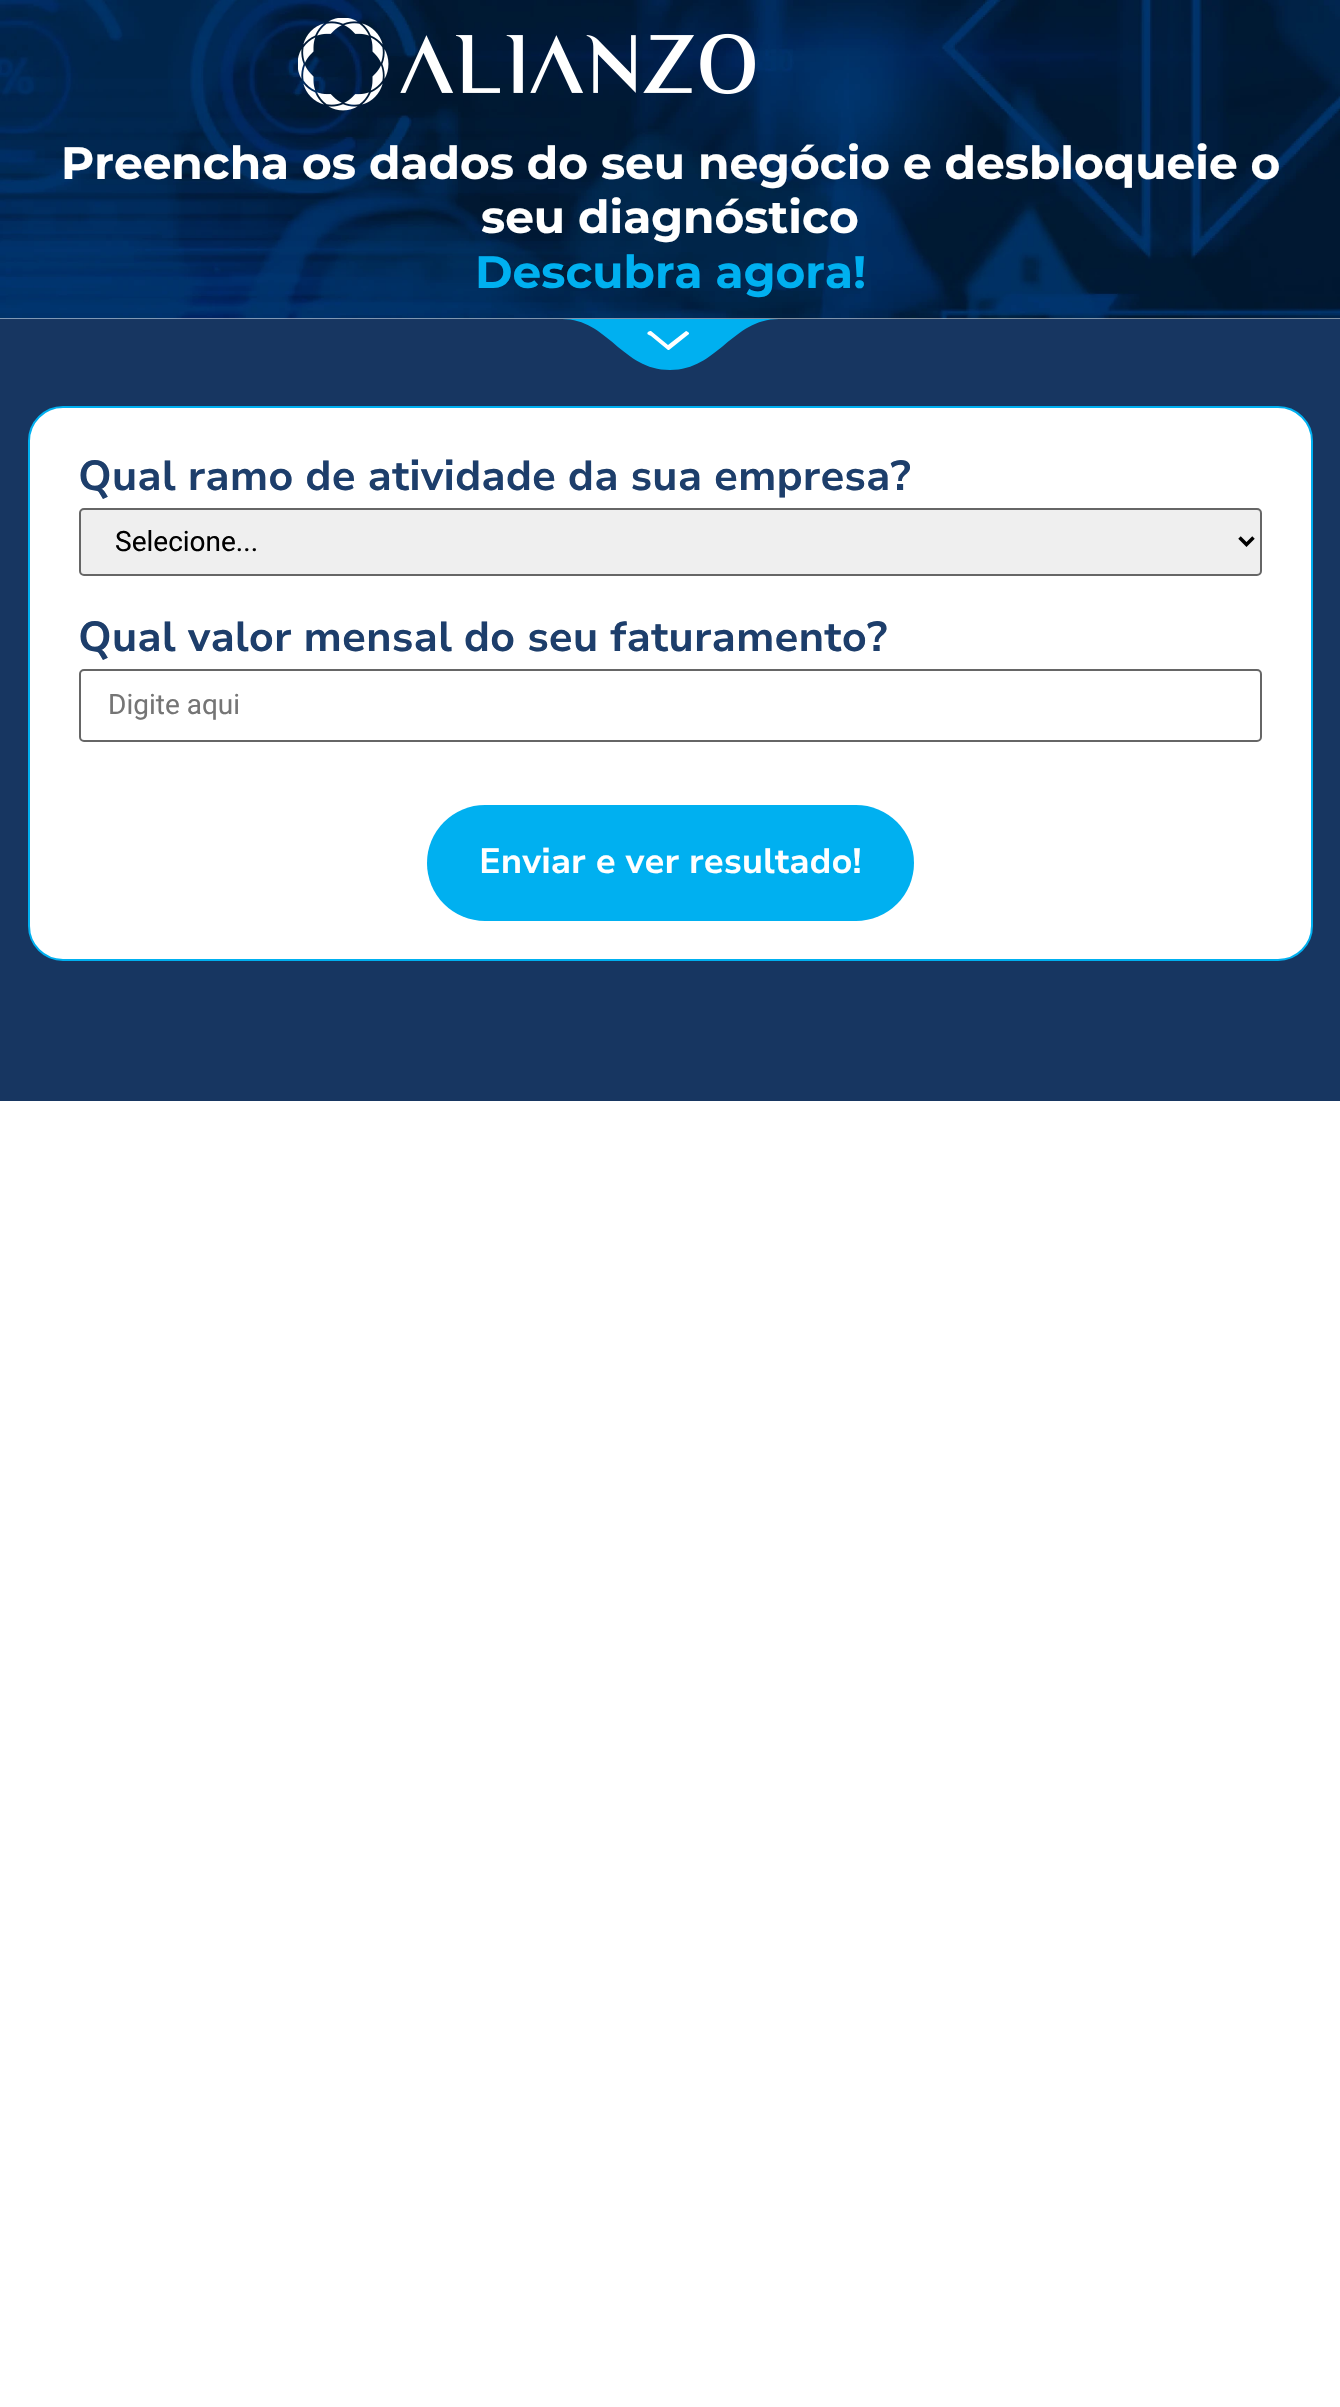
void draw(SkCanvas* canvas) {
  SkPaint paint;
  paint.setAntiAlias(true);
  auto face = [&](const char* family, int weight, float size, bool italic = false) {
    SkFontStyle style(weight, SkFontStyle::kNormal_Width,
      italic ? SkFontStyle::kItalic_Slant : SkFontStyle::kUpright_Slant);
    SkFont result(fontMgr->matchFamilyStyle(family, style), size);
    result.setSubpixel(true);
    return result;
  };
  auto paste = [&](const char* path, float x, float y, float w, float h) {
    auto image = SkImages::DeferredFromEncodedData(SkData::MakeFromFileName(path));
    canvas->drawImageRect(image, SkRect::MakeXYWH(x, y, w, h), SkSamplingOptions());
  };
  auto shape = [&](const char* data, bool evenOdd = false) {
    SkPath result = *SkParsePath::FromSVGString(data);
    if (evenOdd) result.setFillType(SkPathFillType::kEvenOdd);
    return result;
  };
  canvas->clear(0xffffffff);
  paste("img/1.png", 0, 0, 1340, 319);
  paste("img/2.png", 298, 18, 457, 93);
  paint.setColor(0xff173661);
  canvas->drawRect(SkRect::MakeXYWH(0, 319, 1340, 782), paint);
  paint.setColor(0xff00b0f0);
  canvas->drawPath(shape("M670 370C718 370 732 319 779 319H562C608 319 622 370 670 370Z"), paint);
  paint.setColor(0xffffffff);
  canvas->drawPath(shape("M689 333C688 332 687 331 686 331L668 345L651 331C650 331 649 331 648 332C646 334 649 335 651 336L668 350H669L689 334Z"), paint);
  canvas->drawRoundRect(SkRect::MakeXYWH(29, 407, 1283, 553), 34, 34, paint);
  paint.setStroke(true);
  paint.setStrokeWidth(2);
  paint.setColor(0xff00b0f0);
  canvas->drawRoundRect(SkRect::MakeXYWH(29, 407, 1283, 553), 34, 34, paint);
  paint.setStroke(false);
  paint.setColor(0xffefefef);
  canvas->drawRoundRect(SkRect::MakeXYWH(80, 509, 1181, 66), 4, 4, paint);
  paint.setStroke(true);
  paint.setColor(0xff666666);
  canvas->drawRoundRect(SkRect::MakeXYWH(80, 509, 1181, 66), 4, 4, paint);
  paint.setStrokeWidth(3.5f);
  paint.setColor(0xff000000);
  canvas->drawPath(shape("M1239.5 537.5L1246.5 544.5L1253.5 537.5"), paint);
  paint.setStrokeWidth(2);
  paint.setColor(0xff666666);
  canvas->drawRoundRect(SkRect::MakeXYWH(80, 670, 1181, 71), 4, 4, paint);
  paint.setStroke(false);
  paint.setColor(0xff00b0f0);
  canvas->drawRoundRect(SkRect::MakeXYWH(427, 805, 487, 116), 58, 58, paint);
  auto f0 = face("Montserrat", 700, 45.5f);
  paint.setColor(0xffffffff);
  canvas->drawString("Preencha os dados do seu negócio e desbloqueie o", 61, 179, f0, paint);
  canvas->drawString("seu diagnóstico", 481, 233, f0, paint);
  paint.setColor(0xff00b0f0);
  canvas->drawString("Descubra agora!", 475, 288, f0, paint);
  auto f1 = face("Nunito Sans", 700, 42);
  paint.setColor(0xff1d3e6b);
  canvas->drawString("Qual ramo de atividade da sua empresa?", 78, 490, f1, paint);
  auto f2 = face("Roboto", 400, 28);
  paint.setColor(0xff000000);
  canvas->drawString("Selecione...", 115, 551, f2, paint);
  paint.setColor(0xff1d3e6b);
  canvas->drawString("Qual valor mensal do seu faturamento?", 78, 651, f1, paint);
  paint.setColor(0xff757575);
  canvas->drawString("Digite aqui", 108, 714, f2, paint);
  auto f3 = face("Nunito Sans", 700, 35);
  paint.setColor(0xffffffff);
  canvas->drawString("Enviar e ver resultado!", 479, 873, f3, paint);
}
